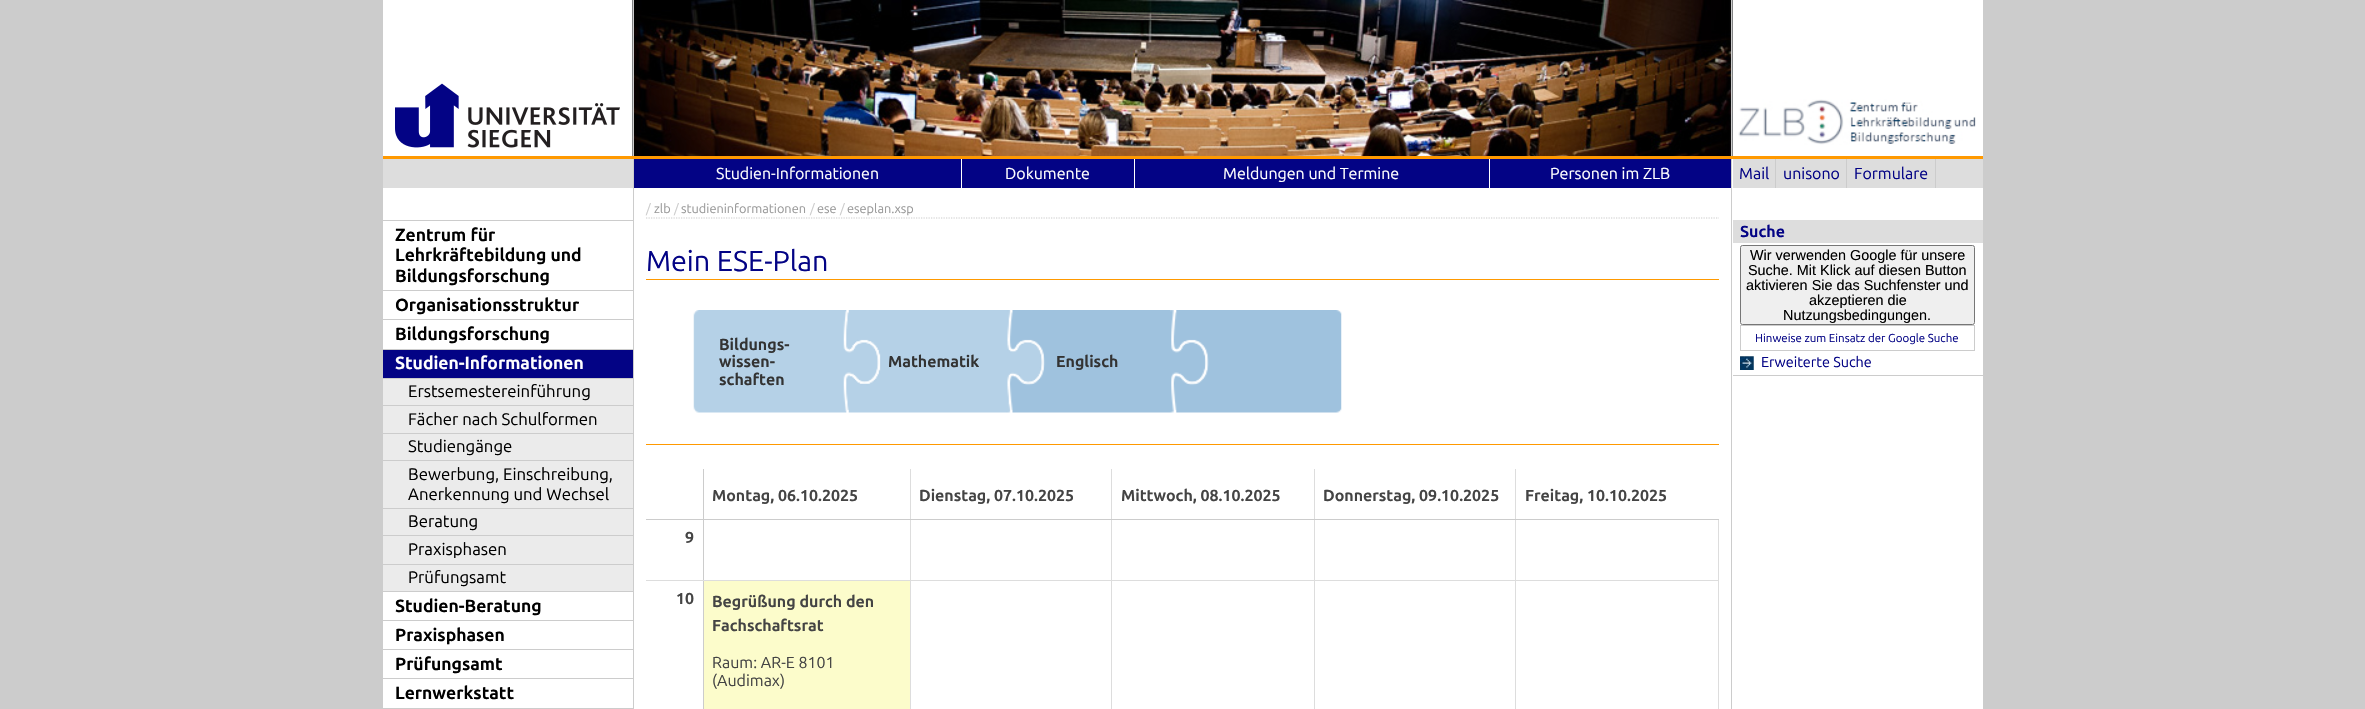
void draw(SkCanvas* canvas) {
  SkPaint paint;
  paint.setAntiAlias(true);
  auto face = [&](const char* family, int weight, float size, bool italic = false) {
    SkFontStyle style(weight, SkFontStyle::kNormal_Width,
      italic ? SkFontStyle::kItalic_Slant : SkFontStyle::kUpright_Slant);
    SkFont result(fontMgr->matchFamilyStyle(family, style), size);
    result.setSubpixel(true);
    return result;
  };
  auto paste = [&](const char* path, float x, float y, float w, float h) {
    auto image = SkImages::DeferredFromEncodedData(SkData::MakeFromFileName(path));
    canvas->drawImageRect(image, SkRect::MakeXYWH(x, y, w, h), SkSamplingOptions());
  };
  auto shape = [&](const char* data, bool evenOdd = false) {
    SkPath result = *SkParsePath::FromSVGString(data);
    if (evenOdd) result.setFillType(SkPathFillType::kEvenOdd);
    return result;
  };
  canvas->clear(0xffcccccc);
  paint.setColor(0xffffffff);
  canvas->drawRect(SkRect::MakeXYWH(383, 0, 1600, 709), paint);
  paste("img/2.png", 632, 0, 1101, 156);
  {
    const struct { float x, y, w, h; SkColor color; } items[] = {
      {1731, 0, 1, 709, 0xffcccccc},
      {633, 0, 1, 709, 0xffcccccc},
      {383, 156, 1600, 3, 0xffff9900},
    };
    for (auto [x, y, w, h, color] : items) {
      paint.setColor(color);
      canvas->drawRect(SkRect::MakeXYWH(x, y, w, h), paint);
    }
  }
  paste("img/1.png", 395, 83, 225, 65);
  {
    const struct { float x, y, w, h; SkColor color; } items[] = {
      {383, 159, 250, 29, 0xffdddddd},
      {383, 220, 250, 1, 0xffcccccc},
      {383, 290, 250, 1, 0xffcccccc},
      {383, 319, 250, 1, 0xffcccccc},
      {383, 349, 250, 1, 0xffcccccc},
      {383, 350, 250, 28, 0xff030385},
      {383, 378, 250, 1, 0xffcccccc},
      {383, 379, 250, 26, 0xffebebeb},
      {383, 405, 250, 1, 0xffcccccc},
      {383, 406, 250, 27, 0xffebebeb},
      {383, 433, 250, 1, 0xffcccccc},
      {383, 434, 250, 26, 0xffebebeb},
      {383, 460, 250, 1, 0xffcccccc},
      {383, 461, 250, 47, 0xffebebeb},
      {383, 508, 250, 1, 0xffcccccc},
      {383, 509, 250, 26, 0xffebebeb},
      {383, 535, 250, 1, 0xffcccccc},
      {383, 536, 250, 28, 0xffebebeb},
      {383, 564, 250, 1, 0xffcccccc},
      {383, 565, 250, 26, 0xffebebeb},
      {383, 591, 250, 1, 0xffcccccc},
      {383, 620, 250, 1, 0xffcccccc},
      {383, 649, 250, 1, 0xffcccccc},
      {383, 678, 250, 1, 0xffcccccc},
      {383, 708, 250, 1, 0xffcccccc},
      {634, 159, 1097, 29, 0xff030385},
      {961, 159, 1, 30, 0xffffffff},
      {1134, 159, 1, 30, 0xffffffff},
      {1489, 159, 1, 30, 0xffffffff},
    };
    for (auto [x, y, w, h, color] : items) {
      paint.setColor(color);
      canvas->drawRect(SkRect::MakeXYWH(x, y, w, h), paint);
    }
  }
  paint.setStroke(true);
  paint.setStrokeWidth(1.2f);
  paint.setColor(0xffcccccc);
  paint.setPathEffect(SkDashPathEffect::Make({{1.25f, 1.25f}}, 0));
  canvas->drawPath(shape("M646 218H1719"), paint);
  paint.setPathEffect(nullptr);
  paint.setStroke(false);
  paint.setColor(0xffff9900);
  canvas->drawRect(SkRect::MakeXYWH(646, 279, 1073, 1), paint);
  canvas->drawRect(SkRect::MakeXYWH(646, 444, 1073, 1), paint);
  paste("img/3.png", 693, 310, 649, 103);
  {
    const struct { float x, y, w, h; SkColor color; } items[] = {
      {1515, 580, 204, 1, 0xffdddddd},
      {1515, 580, 1, 129, 0xffdddddd},
      {1314, 580, 202, 1, 0xffdddddd},
      {1515, 519, 1, 62, 0xffdddddd},
      {1718, 519, 1, 190, 0xffdddddd},
      {1515, 519, 204, 1, 0xffcccccc},
      {1515, 469, 1, 51, 0xffdddddd},
      {1314, 580, 1, 129, 0xffdddddd},
      {1111, 580, 204, 1, 0xffdddddd},
      {1314, 519, 1, 62, 0xffdddddd},
      {1314, 519, 202, 1, 0xffcccccc},
      {1314, 469, 1, 51, 0xffdddddd},
      {1111, 580, 1, 129, 0xffdddddd},
      {910, 580, 203, 1, 0xffdddddd},
      {1111, 519, 1, 62, 0xffdddddd},
      {1111, 519, 204, 1, 0xffcccccc},
      {1111, 469, 1, 51, 0xffdddddd},
      {910, 519, 1, 190, 0xffdddddd},
      {910, 519, 203, 1, 0xffcccccc},
      {910, 469, 1, 51, 0xffdddddd},
      {703, 580, 1, 129, 0xffcccccc},
      {703, 580, 208, 1, 0xffdddddd},
      {703, 519, 1, 62, 0xffcccccc},
      {703, 519, 208, 1, 0xffcccccc},
      {703, 469, 1, 51, 0xffcccccc},
      {646, 519, 58, 1, 0xffcccccc},
      {646, 580, 58, 1, 0xffdddddd},
      {704, 581, 206, 128, 0xfffcfccb},
    };
    for (auto [x, y, w, h, color] : items) {
      paint.setColor(color);
      canvas->drawRect(SkRect::MakeXYWH(x, y, w, h), paint);
    }
  }
  paste("img/4.png", 1738, 99, 238, 46);
  {
    const struct { float x, y, w, h; SkColor color; } items[] = {
      {1733, 159, 250, 29, 0xffdddddd},
      {1775, 159, 1, 29, 0xffcccccc},
      {1846, 159, 1, 29, 0xffcccccc},
      {1935, 159, 1, 29, 0xffcccccc},
      {1733, 220, 250, 23, 0xffdddddd},
      {1733, 375, 250, 1, 0xffcccccc},
    };
    for (auto [x, y, w, h, color] : items) {
      paint.setColor(color);
      canvas->drawRect(SkRect::MakeXYWH(x, y, w, h), paint);
    }
  }
  paint.setColor(0xffefefef);
  canvas->drawRoundRect(SkRect::MakeXYWH(1740.5f, 245.5f, 234, 79), 2, 2, paint);
  paint.setStroke(true);
  paint.setStrokeWidth(1);
  paint.setColor(0xff767676);
  canvas->drawRoundRect(SkRect::MakeXYWH(1740.5f, 245.5f, 234, 79), 2, 2, paint);
  paint.setColor(0xffcccccc);
  canvas->drawRect(SkRect::MakeXYWH(1740.5f, 325.5f, 234, 25), paint);
  paste("img/5.png", 1740, 356, 14, 14);
  auto f0 = face("Ubuntu", 700, 17.6f);
  paint.setStroke(false);
  paint.setColor(0xff000000);
  {
    const struct { const char* s; float x, y; } items[] = {
      {"Zentrum für", 395, 241},
      {"Lehrkräftebildung und", 395, 261},
      {"Bildungsforschung", 395, 282},
      {"Organisationsstruktur", 395, 311},
      {"Bildungsforschung", 395, 340},
    };
    for (auto [s, x, y] : items) {
      canvas->drawString(s, x, y, f0, paint);
    }
  }
  paint.setColor(0xffffffff);
  canvas->drawString("Studien-Informationen", 395, 369, f0, paint);
  auto f1 = face("Ubuntu", 400, 16.75f);
  paint.setColor(0xff000000);
  {
    const struct { const char* s; float x, y; } items[] = {
      {"Erstsemestereinführung", 408, 397},
      {"Fächer nach Schulformen", 408, 425},
      {"Studiengänge", 408, 452},
      {"Bewerbung, Einschreibung,", 408, 480},
      {"Anerkennung und Wechsel", 408, 500},
      {"Beratung", 408, 527},
      {"Praxisphasen", 408, 555},
      {"Prüfungsamt", 408, 583},
    };
    for (auto [s, x, y] : items) {
      canvas->drawString(s, x, y, f1, paint);
    }
  }
  {
    const struct { const char* s; float x, y; } items[] = {
      {"Studien-Beratung", 395, 612},
      {"Praxisphasen", 395, 641},
      {"Prüfungsamt", 395, 670},
      {"Lernwerkstatt", 395, 699},
    };
    for (auto [s, x, y] : items) {
      canvas->drawString(s, x, y, f0, paint);
    }
  }
  auto f2 = face("Ubuntu", 400, 16);
  paint.setColor(0xffffffff);
  {
    const struct { const char* s; float x, y; } items[] = {
      {"Studien-Informationen", 716, 179},
      {"Dokumente", 1005, 179},
      {"Meldungen und Termine", 1223, 179},
      {"Personen im ZLB", 1550, 179},
    };
    for (auto [s, x, y] : items) {
      canvas->drawString(s, x, y, f2, paint);
    }
  }
  auto f3 = face("Ubuntu", 400, 12.75f);
  paint.setColor(0xffcccccc);
  canvas->drawString("/", 646, 213, f3, paint);
  paint.setColor(0xff999999);
  canvas->drawString("zlb", 654, 213, f3, paint);
  paint.setColor(0xffcccccc);
  canvas->drawString("/", 674, 213, f3, paint);
  paint.setColor(0xff999999);
  canvas->drawString("studieninformationen", 681, 213, f3, paint);
  paint.setColor(0xffcccccc);
  canvas->drawString("/", 810, 213, f3, paint);
  paint.setColor(0xff999999);
  canvas->drawString("ese", 817, 213, f3, paint);
  paint.setColor(0xffcccccc);
  canvas->drawString("/", 840, 213, f3, paint);
  paint.setColor(0xff999999);
  canvas->drawString("eseplan.xsp", 847, 213, f3, paint);
  auto f4 = face("Ubuntu", 400, 28.75f);
  paint.setColor(0xff030385);
  canvas->drawString("Mein ESE-Plan", 646, 271, f4, paint);
  auto f5 = face("Ubuntu", 700, 16);
  paint.setColor(0xff333333);
  {
    const struct { const char* s; float x, y; } items[] = {
      {"Bildungs-", 719, 350},
      {"wissen-", 719, 367},
      {"schaften", 719, 385},
      {"Mathematik", 888, 367},
      {"Englisch", 1056, 367},
    };
    for (auto [s, x, y] : items) {
      canvas->drawString(s, x, y, f5, paint);
    }
  }
  paint.setColor(0xff444444);
  {
    const struct { const char* s; float x, y; } items[] = {
      {"Montag, 06.10.2025", 712, 501},
      {"Dienstag, 07.10.2025", 919, 501},
      {"Mittwoch, 08.10.2025", 1121, 501},
      {"Donnerstag, 09.10.2025", 1323, 501},
      {"Freitag, 10.10.2025", 1525, 501},
      {"9", 685, 543},
      {"10", 676, 604},
      {"Begrüßung durch den", 712, 607},
      {"Fachschaftsrat", 712, 631},
    };
    for (auto [s, x, y] : items) {
      canvas->drawString(s, x, y, f5, paint);
    }
  }
  canvas->drawString("Raum: AR-E 8101", 712, 668, f2, paint);
  canvas->drawString("(Audimax)", 712, 686, f2, paint);
  paint.setColor(0xff030385);
  {
    const struct { const char* s; float x, y; } items[] = {
      {"Mail", 1739, 179},
      {"unisono", 1783, 179},
      {"Formulare", 1854, 179},
    };
    for (auto [s, x, y] : items) {
      canvas->drawString(s, x, y, f2, paint);
    }
  }
  canvas->drawString("Suche", 1740, 237, f5, paint);
  auto f6 = face("Liberation Sans", 400, 14.4f);
  paint.setColor(0xff000000);
  {
    const struct { const char* s; float x, y; } items[] = {
      {"Wir verwenden Google für unsere", 1750, 260},
      {"Suche. Mit Klick auf diesen Button", 1748, 275},
      {"aktivieren Sie das Suchfenster und", 1746, 290},
      {"akzeptieren die", 1809, 305},
      {"Nutzungsbedingungen.", 1783, 320},
    };
    for (auto [s, x, y] : items) {
      canvas->drawString(s, x, y, f6, paint);
    }
  }
  auto f7 = face("Ubuntu", 400, 11.5f);
  paint.setColor(0xff030385);
  canvas->drawString("Hinweise zum Einsatz der Google Suche", 1755, 342, f7, paint);
  auto f8 = face("Ubuntu", 400, 14.4f);
  canvas->drawString("Erweiterte Suche", 1761, 367, f8, paint);
}
